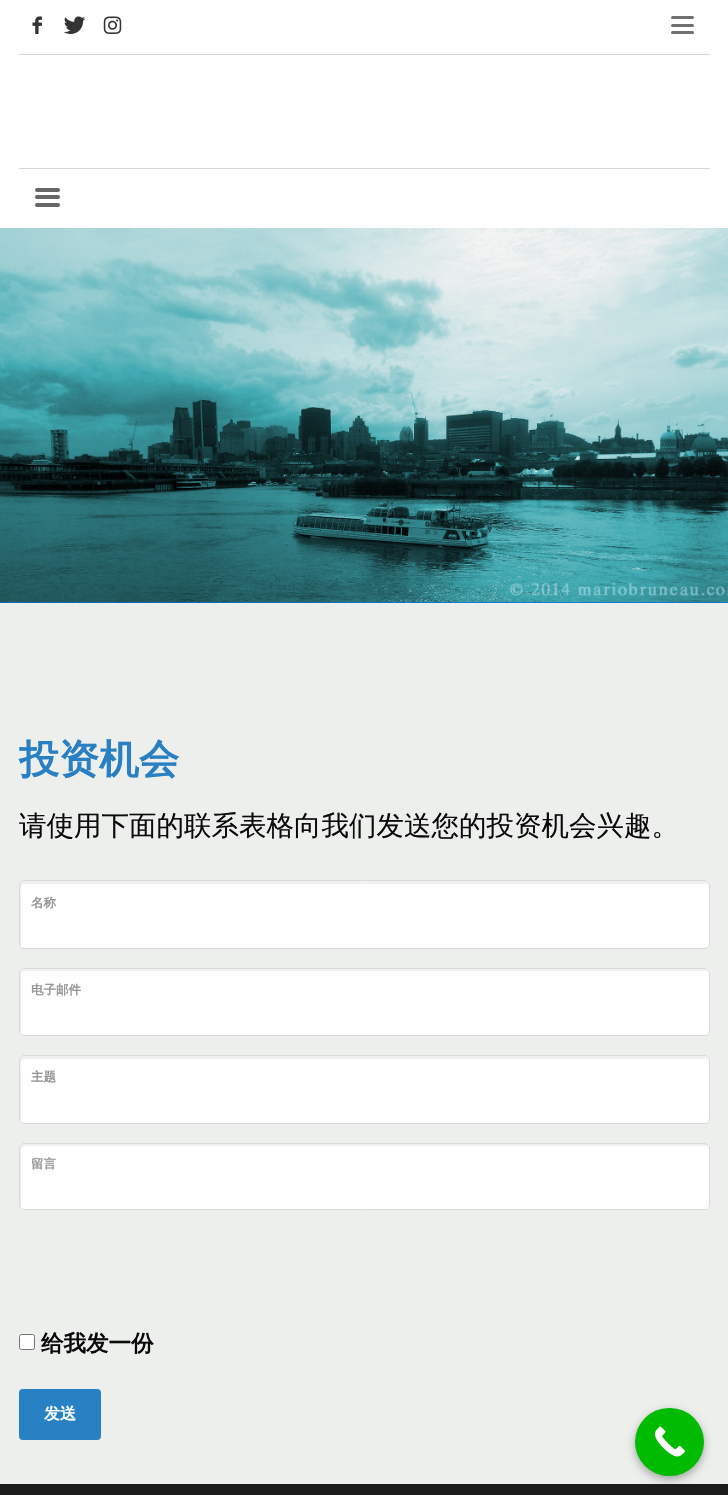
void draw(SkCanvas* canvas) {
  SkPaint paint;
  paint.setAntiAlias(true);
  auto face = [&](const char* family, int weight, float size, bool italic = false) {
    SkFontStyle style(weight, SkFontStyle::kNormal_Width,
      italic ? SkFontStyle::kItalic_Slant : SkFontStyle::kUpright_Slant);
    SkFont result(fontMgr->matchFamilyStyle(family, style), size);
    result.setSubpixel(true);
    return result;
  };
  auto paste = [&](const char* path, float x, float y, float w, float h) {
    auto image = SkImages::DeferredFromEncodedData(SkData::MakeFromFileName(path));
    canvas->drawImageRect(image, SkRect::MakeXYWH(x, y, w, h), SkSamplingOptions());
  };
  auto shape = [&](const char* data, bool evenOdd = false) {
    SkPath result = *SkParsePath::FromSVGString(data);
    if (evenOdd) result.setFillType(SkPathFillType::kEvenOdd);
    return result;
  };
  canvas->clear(0xffedefed);
  paint.setColor(0xffffffff);
  canvas->drawRect(SkRect::MakeXYWH(0, 0, 728, 228), paint);
  paste("img/1.png", 32, 16, 10, 18);
  paste("img/2.png", 64, 16, 22, 18);
  paste("img/3.png", 103, 16, 19, 18);
  paint.setColor(0xff707070);
  canvas->drawRoundRect(SkRect::MakeXYWH(671, 31, 23, 3), 1.5f, 1.5f, paint);
  canvas->drawRoundRect(SkRect::MakeXYWH(671, 24, 23, 3), 1.5f, 1.5f, paint);
  canvas->drawRoundRect(SkRect::MakeXYWH(671, 16, 23, 3), 1.5f, 1.5f, paint);
  paint.setColor(0xffd6d6d6);
  canvas->drawRect(SkRect::MakeXYWH(19, 54, 691, 1), paint);
  canvas->drawRect(SkRect::MakeXYWH(19, 168, 691, 1), paint);
  paint.setColor(0xff666666);
  canvas->drawRoundRect(SkRect::MakeXYWH(35, 188, 25, 4), 2, 2, paint);
  canvas->drawRoundRect(SkRect::MakeXYWH(35, 195, 25, 4), 2, 2, paint);
  canvas->drawRoundRect(SkRect::MakeXYWH(35, 203, 25, 4), 2, 2, paint);
  paint.setColor(0xff066fd9);
  canvas->drawRect(SkRect::MakeXYWH(0, 602, 728, 1), paint);
  paste("img/4.png", 0, 228, 728, 375);
  paint.setColor(0xffffffff);
  canvas->drawRoundRect(SkRect::MakeXYWH(19, 880, 691, 69), 5, 5, paint);
  paint.setColor(0xfff0f0f0);
  canvas->drawPath(shape("M25 884H706C707 884 708 884 709 885C709 883 707 881 705 881H24C22 881 20 883 20 885V944C20 945 20 946 21 947V898C21 895 19 884 25 884Z"), paint);
  paint.setStroke(true);
  paint.setStrokeWidth(1);
  paint.setColor(0xffd9d9d9);
  canvas->drawRoundRect(SkRect::MakeXYWH(19.5f, 880.5f, 690, 68), 4.5f, 4.5f, paint);
  paint.setStroke(false);
  paint.setColor(0xffffffff);
  canvas->drawRoundRect(SkRect::MakeXYWH(19, 968, 691, 68), 5, 5, paint);
  paint.setColor(0xfff0f0f0);
  canvas->drawPath(shape("M25 971H706L709 972C709 971 707 969 705 969H24C22 969 20 971 20 973V1031C20 1032 20 1033 21 1034V975C21 973 23 971 25 971Z"), paint);
  paint.setStroke(true);
  paint.setColor(0xffd9d9d9);
  canvas->drawRoundRect(SkRect::MakeXYWH(19.5f, 968.5f, 690, 67), 4.5f, 4.5f, paint);
  paint.setStroke(false);
  paint.setColor(0xffffffff);
  canvas->drawRoundRect(SkRect::MakeXYWH(19, 1055, 691, 69), 5, 5, paint);
  paint.setColor(0xfff0f0f0);
  canvas->drawPath(shape("M25 1059H706L709 1060C709 1058 707 1056 705 1056H24C22 1056 20 1058 20 1060V1119C20 1120 20 1121 21 1122V1072C21 1068 19 1059 25 1059Z"), paint);
  paint.setStroke(true);
  paint.setColor(0xffd9d9d9);
  canvas->drawRoundRect(SkRect::MakeXYWH(19.5f, 1055.5f, 690, 68), 4.5f, 4.5f, paint);
  paint.setStroke(false);
  paint.setColor(0xffffffff);
  canvas->drawRoundRect(SkRect::MakeXYWH(19, 1143, 691, 67), 5, 5, paint);
  paint.setColor(0xfff0f0f0);
  canvas->drawPath(shape("M25 1146H706L709 1147C709 1146 707 1144 705 1144H24C22 1144 20 1146 20 1148V1205C20 1206 20 1207 21 1208V1150C21 1148 23 1146 25 1146Z"), paint);
  paint.setStroke(true);
  paint.setColor(0xffd9d9d9);
  canvas->drawRoundRect(SkRect::MakeXYWH(19.5f, 1143.5f, 690, 66), 4.5f, 4.5f, paint);
  paint.setStroke(false);
  paint.setColor(0xffffffff);
  canvas->drawRoundRect(SkRect::MakeXYWH(19.5f, 1334.5f, 15, 15), 2, 2, paint);
  paint.setStroke(true);
  paint.setColor(0xff767676);
  canvas->drawRoundRect(SkRect::MakeXYWH(19.5f, 1334.5f, 15, 15), 2, 2, paint);
  paint.setStroke(false);
  paint.setColor(0xff2881c3);
  canvas->drawRoundRect(SkRect::MakeXYWH(19, 1389, 82, 51), 4, 4, paint);
  paint.setColor(0xff1b1b1b);
  canvas->drawRect(SkRect::MakeXYWH(0, 1484, 728, 11), paint);
  paint.setColor(0x4d000000);
  paint.setMaskFilter(SkMaskFilter::MakeBlur(kNormal_SkBlurStyle, 4));
  canvas->drawRoundRect(SkRect::MakeXYWH(635, 1411, 69, 69), 34.5f, 34.5f, paint);
  paint.setMaskFilter(nullptr);
  paint.setColor(0xff00bb00);
  canvas->drawRoundRect(SkRect::MakeXYWH(635, 1408, 69, 68), 34, 34, paint);
  paste("img/5.png", 654, 1426, 31, 31);
  auto f0 = face("WenQuanYi Zen Hei", 700, 40);
  paint.setColor(0xff287fc2);
  canvas->drawString("投资机会", 19, 773, f0, paint);
  auto f1 = face("WenQuanYi Zen Hei", 500, 27.5f);
  paint.setColor(0xff0a0a0a);
  canvas->drawString("请使用下面的联系表格向我们发送您的投资机会兴趣。", 19, 835, f1, paint);
  auto f2 = face("WenQuanYi Zen Hei", 700, 12.5f);
  paint.setColor(0xff969696);
  {
    const struct { const char* s; float x, y; } items[] = {
      {"名称", 31, 907},
      {"电子邮件", 31, 994},
      {"主题", 31, 1081},
      {"留言", 31, 1168},
    };
    for (auto [s, x, y] : items) {
      canvas->drawString(s, x, y, f2, paint);
    }
  }
  auto f3 = face("WenQuanYi Zen Hei", 700, 22.5f);
  paint.setColor(0xff0a0a0a);
  canvas->drawString("给我发一份", 41, 1351, f3, paint);
  auto f4 = face("WenQuanYi Zen Hei", 700, 16);
  paint.setColor(0xffffffff);
  canvas->drawString("发送", 44, 1419, f4, paint);
}
